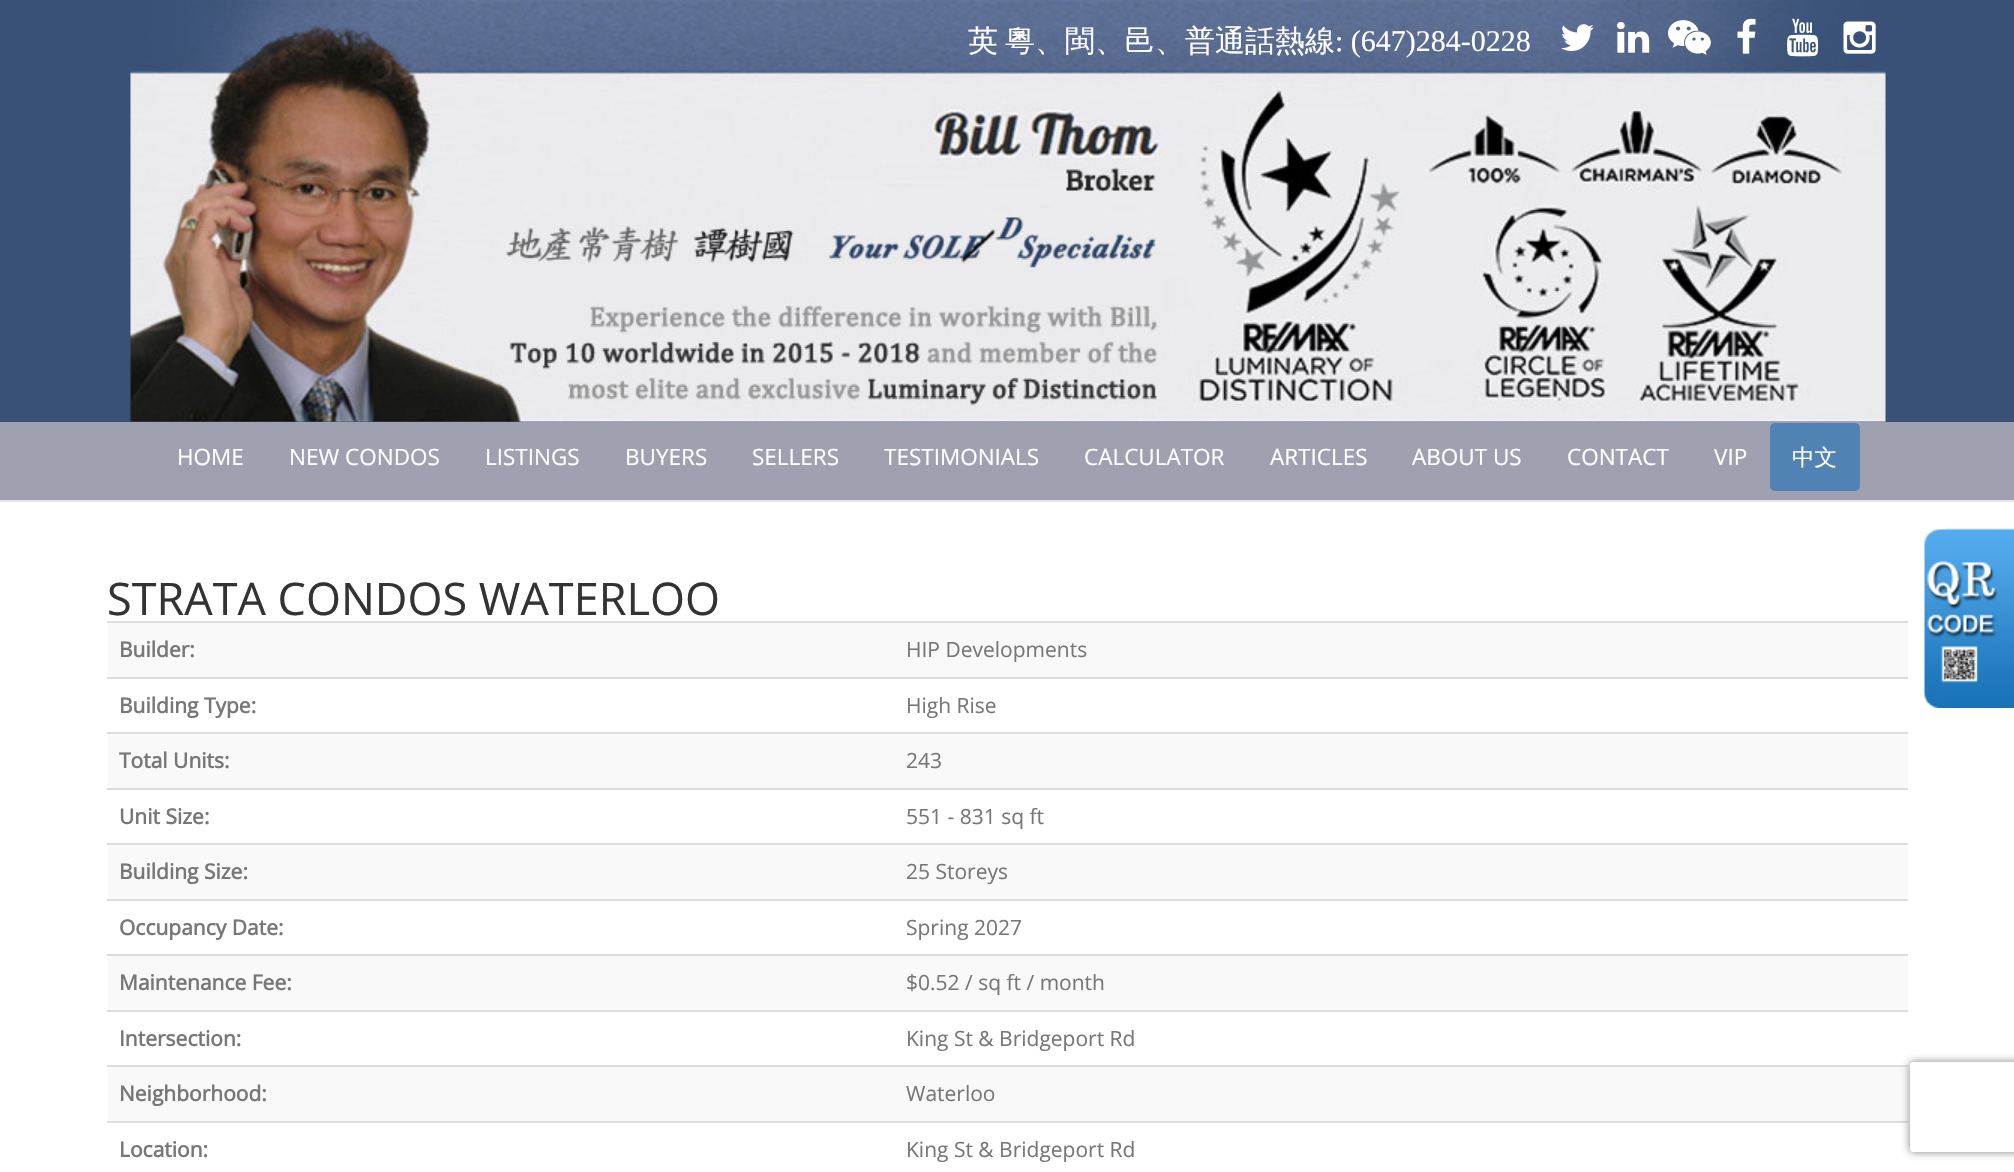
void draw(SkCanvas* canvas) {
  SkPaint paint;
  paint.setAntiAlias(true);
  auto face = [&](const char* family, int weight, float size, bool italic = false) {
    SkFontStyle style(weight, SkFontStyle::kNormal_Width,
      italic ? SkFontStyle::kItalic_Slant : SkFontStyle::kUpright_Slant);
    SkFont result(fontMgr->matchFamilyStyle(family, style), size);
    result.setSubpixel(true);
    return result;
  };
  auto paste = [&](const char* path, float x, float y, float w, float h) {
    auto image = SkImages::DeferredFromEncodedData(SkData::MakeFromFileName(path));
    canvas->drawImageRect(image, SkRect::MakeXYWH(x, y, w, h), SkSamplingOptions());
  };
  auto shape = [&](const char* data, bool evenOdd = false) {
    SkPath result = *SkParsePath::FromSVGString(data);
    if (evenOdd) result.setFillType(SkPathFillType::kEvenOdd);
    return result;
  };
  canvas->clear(0xffffffff);
  paint.setColor(0xff395176);
  canvas->drawRect(SkRect::MakeXYWH(0, 0, 2014, 422), paint);
  paste("img/1.png", 130, 0, 1756, 422);
  paste("img/2.png", 1561, 24, 33, 27);
  paste("img/3.png", 1617, 22, 33, 31);
  paste("img/4.png", 1668, 20, 43, 35);
  paste("img/5.png", 1737, 18, 19, 36);
  paste("img/6.png", 1787, 18, 32, 39);
  paste("img/7.png", 1843, 21, 33, 33);
  paint.setColor(0xff9fa1b0);
  canvas->drawRect(SkRect::MakeXYWH(0, 422, 2014, 78), paint);
  paint.setColor(0xffe9e6e4);
  canvas->drawRect(SkRect::MakeXYWH(0, 500, 2014, 2), paint);
  paint.setColor(0xff5082b3);
  canvas->drawRoundRect(SkRect::MakeXYWH(1770, 423, 90, 68), 5, 5, paint);
  {
    const struct { float x, y, w, h; SkColor color; } items[] = {
      {108, 623, 1800, 54, 0xfff9f9f9},
      {107, 621, 1801, 2, 0xffdddddd},
      {107, 677, 1801, 2, 0xffdddddd},
      {108, 734, 1800, 54, 0xfff9f9f9},
      {107, 732, 1801, 2, 0xffdddddd},
      {107, 788, 1801, 2, 0xffdddddd},
      {108, 845, 1800, 54, 0xfff9f9f9},
      {107, 843, 1801, 2, 0xffdddddd},
      {107, 899, 1801, 2, 0xffdddddd},
      {108, 956, 1800, 54, 0xfff9f9f9},
      {107, 954, 1801, 2, 0xffdddddd},
      {107, 1010, 1801, 2, 0xffdddddd},
      {108, 1067, 1800, 54, 0xfff9f9f9},
      {107, 1065, 1801, 2, 0xffdddddd},
      {107, 1121, 1801, 2, 0xffdddddd},
    };
    for (auto [x, y, w, h, color] : items) {
      paint.setColor(color);
      canvas->drawRect(SkRect::MakeXYWH(x, y, w, h), paint);
    }
  }
  paste("img/8.png", 1924, 528, 90, 180);
  canvas->save();
  canvas->clipPath(shape("M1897 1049H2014V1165H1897ZM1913 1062H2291C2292.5 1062 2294 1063.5 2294 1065V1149C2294 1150.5 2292.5 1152 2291 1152H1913C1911.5 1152 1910 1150.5 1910 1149V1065C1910 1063.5 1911.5 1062 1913 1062Z", true), true);
  paint.setColor(0xff808080);
  paint.setMaskFilter(SkMaskFilter::MakeBlur(kNormal_SkBlurStyle, 4));
  canvas->drawRoundRect(SkRect::MakeXYWH(1910, 1062, 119, 90), 3, 3, paint);
  paint.setMaskFilter(nullptr);
  canvas->restore();
  auto f0 = face("WenQuanYi Zen Hei", 500, 30);
  paint.setColor(0xffffffff);
  canvas->drawString("英", 968, 51, f0, paint);
  canvas->drawString("粵、閩、邑、普通話熱線", 1005, 51, f0, paint);
  auto f1 = face("Liberation Serif", 400, 30);
  canvas->drawString(": (647)284-0228", 1335, 51, f1, paint);
  auto f2 = face("Open Sans", 400, 22.5f);
  {
    const struct { const char* s; float x, y; } items[] = {
      {"HOME", 177, 465},
      {"NEW CONDOS", 289, 465},
      {"LISTINGS", 485, 465},
      {"BUYERS", 625, 465},
      {"SELLERS", 752, 465},
      {"TESTIMONIALS", 884, 465},
      {"CALCULATOR", 1084, 465},
      {"ARTICLES", 1270, 465},
      {"ABOUT US", 1412, 465},
      {"CONTACT", 1567, 465},
      {"VIP", 1714, 465},
    };
    for (auto [s, x, y] : items) {
      canvas->drawString(s, x, y, f2, paint);
    }
  }
  auto f3 = face("WenQuanYi Zen Hei", 500, 22.5f);
  canvas->drawString("中文", 1792, 465, f3, paint);
  auto f4 = face("Open Sans", 400, 45);
  paint.setColor(0xff333333);
  canvas->drawString("STRATA CONDOS WATERLOO", 107, 615, f4, paint);
  auto f5 = face("Open Sans", 700, 21);
  paint.setColor(0xff777777);
  canvas->drawString("Builder:", 119, 657, f5, paint);
  auto f6 = face("Open Sans", 400, 21);
  canvas->drawString("HIP Developments", 906, 657, f6, paint);
  canvas->drawString("Building Type:", 119, 713, f5, paint);
  canvas->drawString("High Rise", 906, 713, f6, paint);
  canvas->drawString("Total Units:", 119, 768, f5, paint);
  canvas->drawString("243", 906, 768, f6, paint);
  canvas->drawString("Unit Size:", 119, 824, f5, paint);
  canvas->drawString("551 - 831 sq ft", 906, 824, f6, paint);
  canvas->drawString("Building Size:", 119, 879, f5, paint);
  canvas->drawString("25 Storeys", 906, 879, f6, paint);
  canvas->drawString("Occupancy Date:", 119, 935, f5, paint);
  canvas->drawString("Spring 2027", 906, 935, f6, paint);
  canvas->drawString("Maintenance Fee:", 119, 990, f5, paint);
  canvas->drawString("$0.52 / sq ft / month", 906, 990, f6, paint);
  canvas->drawString("Intersection:", 119, 1046, f5, paint);
  canvas->drawString("King St & Bridgeport Rd", 906, 1046, f6, paint);
  canvas->drawString("Neighborhood:", 119, 1101, f5, paint);
  canvas->drawString("Waterloo", 906, 1101, f6, paint);
  canvas->drawString("Location:", 119, 1157, f5, paint);
  canvas->drawString("King St & Bridgeport Rd", 906, 1157, f6, paint);
}
